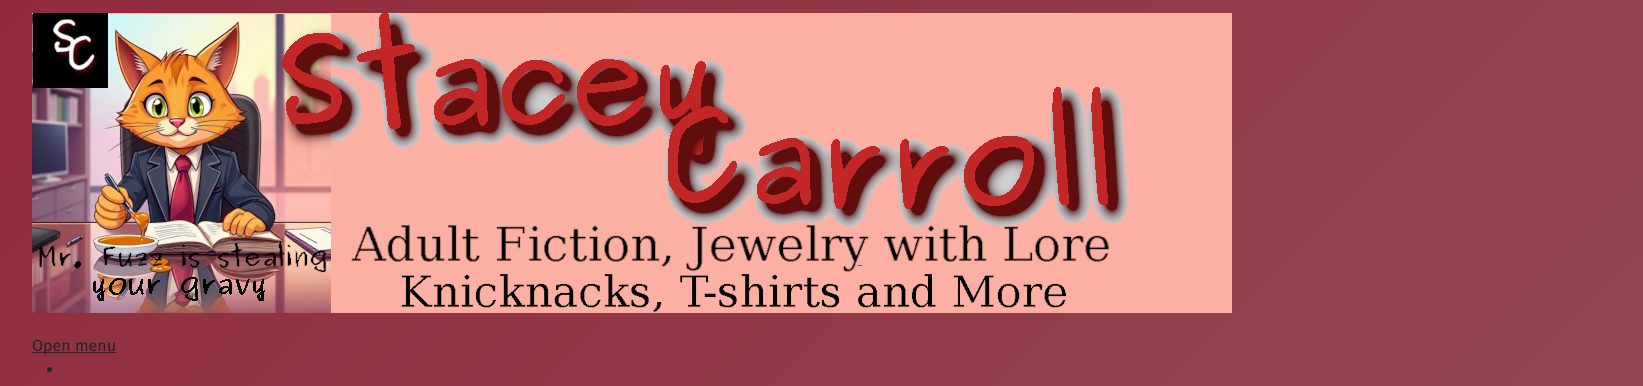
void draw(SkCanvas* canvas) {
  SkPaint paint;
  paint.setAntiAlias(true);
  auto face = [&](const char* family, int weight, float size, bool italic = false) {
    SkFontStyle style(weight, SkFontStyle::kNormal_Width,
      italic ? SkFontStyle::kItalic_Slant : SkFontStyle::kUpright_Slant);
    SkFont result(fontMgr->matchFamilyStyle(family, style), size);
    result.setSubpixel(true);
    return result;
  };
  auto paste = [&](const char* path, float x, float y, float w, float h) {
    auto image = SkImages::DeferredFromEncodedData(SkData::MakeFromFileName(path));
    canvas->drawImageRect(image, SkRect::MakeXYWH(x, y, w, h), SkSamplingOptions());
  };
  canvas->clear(0xffffffff);
  {
    const SkColor colors[] = {0xff912b3b, 0xff954b56};
    const float stops[] = {0, 1};
    const SkPoint ends[] = {{226, -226}, {1417, 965}};
    paint.setShader(SkGradientShader::MakeLinear(ends, colors, stops, 2, SkTileMode::kClamp));
    paint.setAlpha(255);
  }
  canvas->drawRect(SkRect::MakeXYWH(0, 0, 1643, 386), paint);
  paste("img/1.png", 32, 13, 1200, 300);
  paint.setShader(nullptr);
  paint.setColor(0xff22262a);
  canvas->drawRect(SkRect::MakeXYWH(32, 352, 84, 1), paint);
  canvas->drawCircle(49.5f, 369.5f, 2.5f, paint);
  auto f0 = face("Fira Sans", 400, 16);
  canvas->drawString("Open menu", 32, 351, f0, paint);
}
